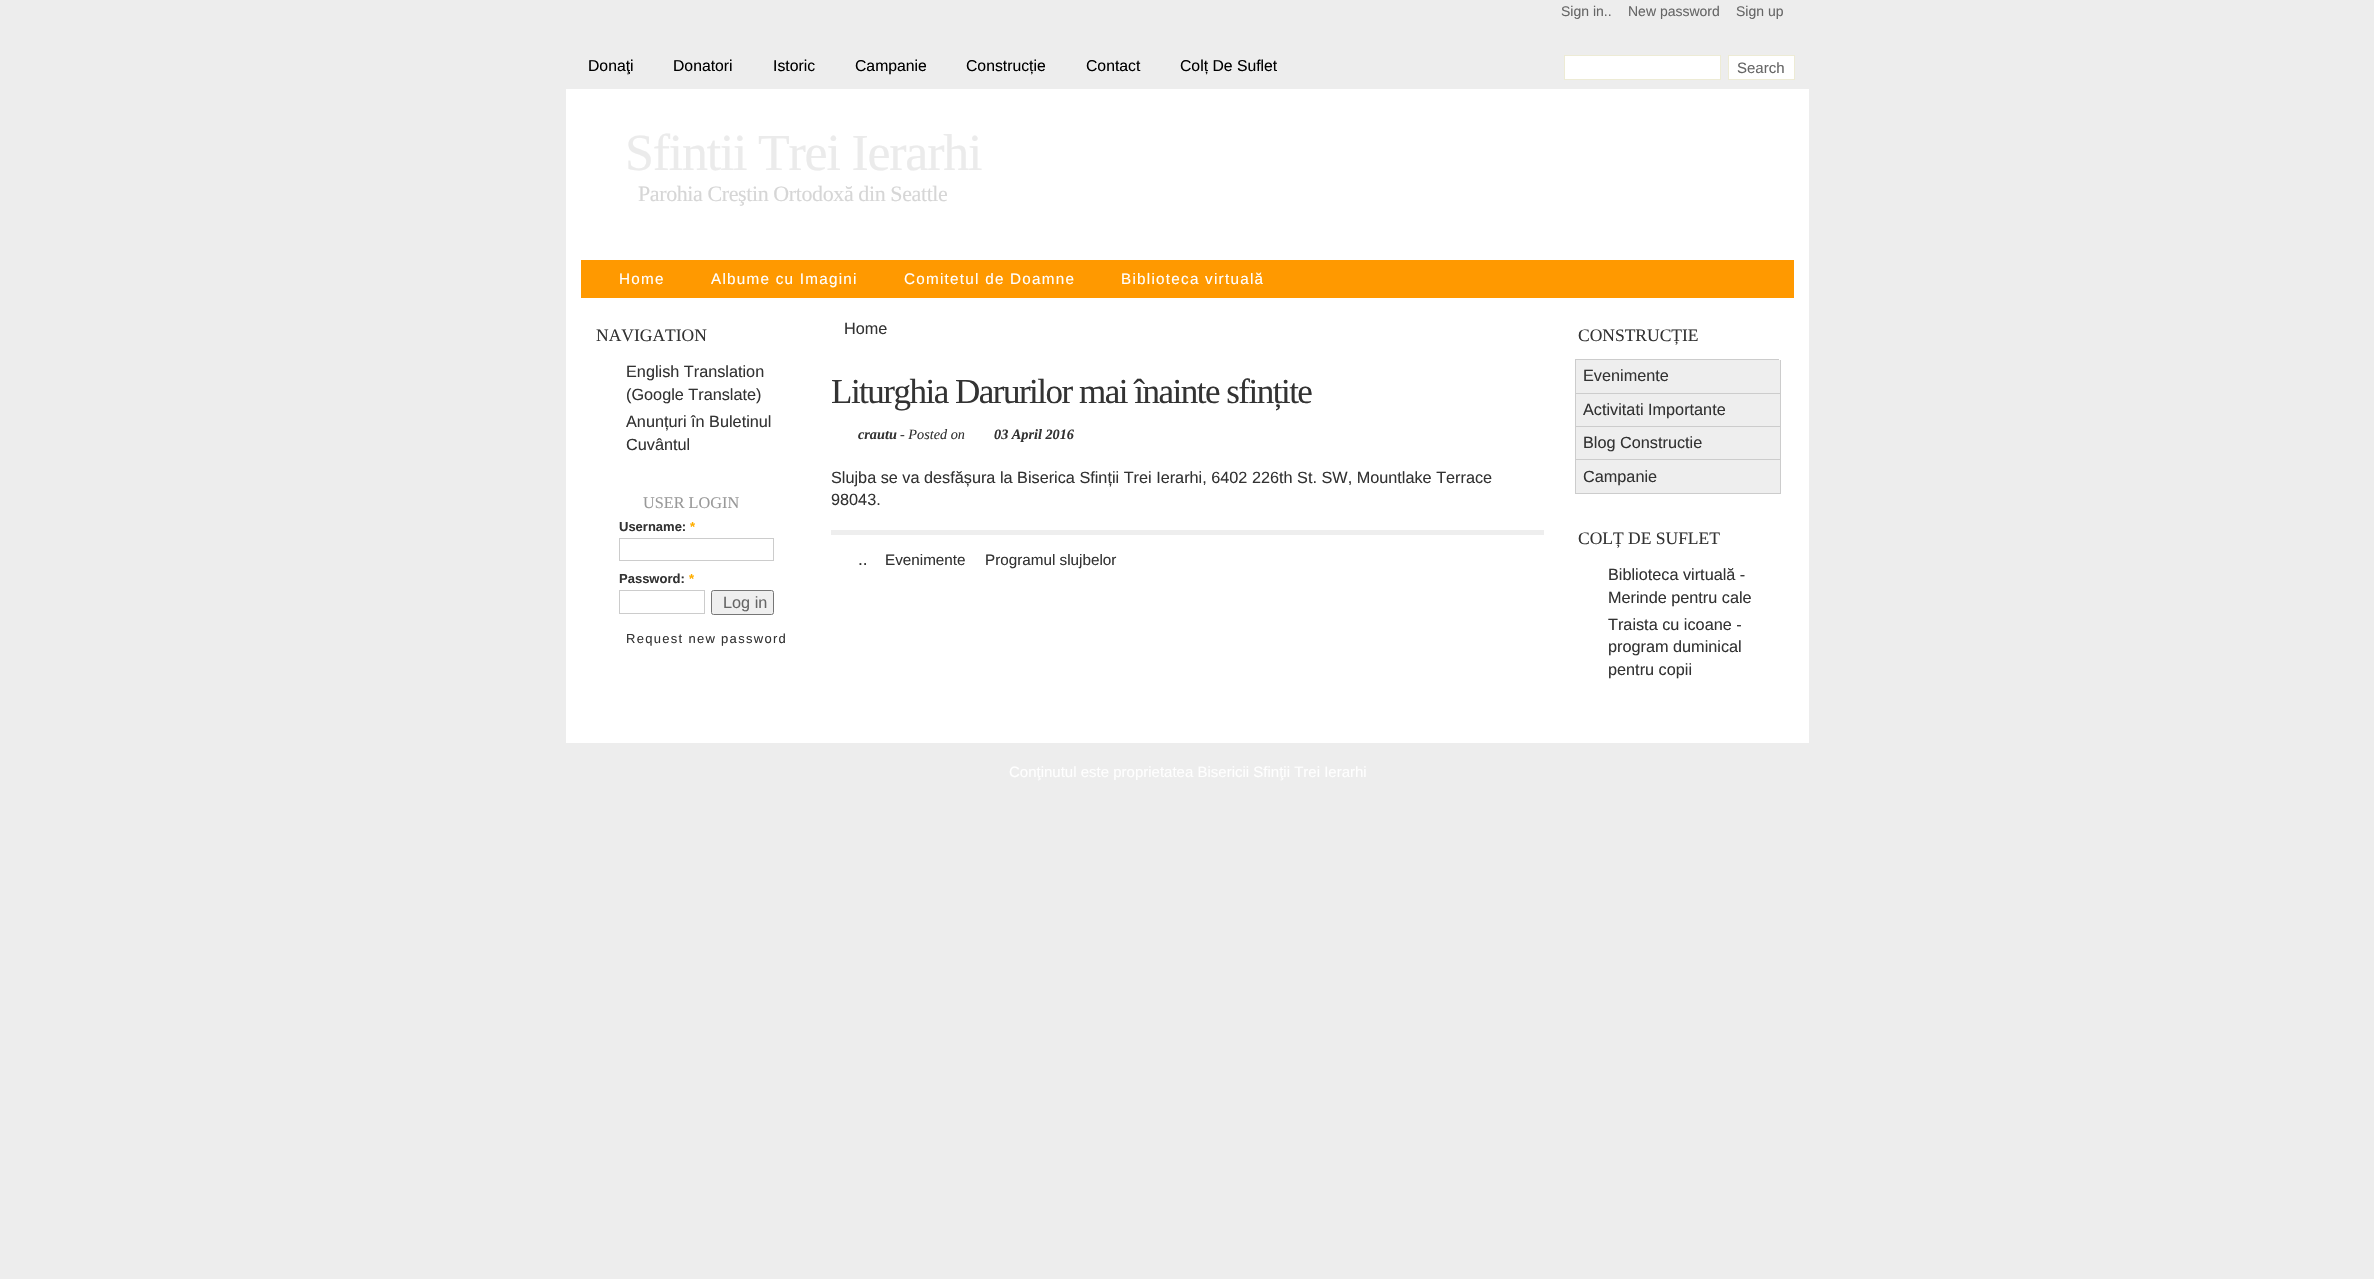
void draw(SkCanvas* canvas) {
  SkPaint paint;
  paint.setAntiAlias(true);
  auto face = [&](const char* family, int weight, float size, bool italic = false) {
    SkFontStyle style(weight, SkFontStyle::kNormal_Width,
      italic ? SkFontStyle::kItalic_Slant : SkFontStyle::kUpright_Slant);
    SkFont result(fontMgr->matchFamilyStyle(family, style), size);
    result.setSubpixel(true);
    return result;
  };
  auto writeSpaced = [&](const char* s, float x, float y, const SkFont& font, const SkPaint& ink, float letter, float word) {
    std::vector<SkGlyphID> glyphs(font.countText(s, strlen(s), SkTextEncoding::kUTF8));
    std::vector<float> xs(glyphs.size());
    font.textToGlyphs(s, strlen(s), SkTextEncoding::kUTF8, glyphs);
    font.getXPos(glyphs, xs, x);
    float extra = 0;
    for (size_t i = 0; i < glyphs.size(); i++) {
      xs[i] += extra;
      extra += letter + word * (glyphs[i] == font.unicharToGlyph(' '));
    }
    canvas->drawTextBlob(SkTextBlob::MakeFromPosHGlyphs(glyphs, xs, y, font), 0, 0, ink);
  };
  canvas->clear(0xffededed);
  paint.setColor(0xffffffff);
  canvas->drawRect(SkRect::MakeXYWH(1564.5f, 55.5f, 156, 24), paint);
  paint.setStroke(true);
  paint.setStrokeWidth(1);
  paint.setColor(0xffedebd5);
  canvas->drawRect(SkRect::MakeXYWH(1564.5f, 55.5f, 156, 24), paint);
  paint.setStroke(false);
  paint.setColor(0xffffffff);
  canvas->drawRect(SkRect::MakeXYWH(1728.5f, 55.5f, 66, 24), paint);
  paint.setStroke(true);
  paint.setColor(0xffedebd5);
  canvas->drawRect(SkRect::MakeXYWH(1728.5f, 55.5f, 66, 24), paint);
  paint.setStroke(false);
  paint.setColor(0xffffffff);
  canvas->drawRect(SkRect::MakeXYWH(566, 89, 1243, 654), paint);
  paint.setColor(0xffff9900);
  canvas->drawRect(SkRect::MakeXYWH(581, 260, 1213, 38), paint);
  paint.setStroke(true);
  paint.setColor(0xffcccccc);
  canvas->drawRect(SkRect::MakeXYWH(619.5f, 538.5f, 154, 22), paint);
  canvas->drawRect(SkRect::MakeXYWH(619.5f, 590.5f, 85, 23), paint);
  paint.setStroke(false);
  paint.setColor(0xffefefef);
  canvas->drawRoundRect(SkRect::MakeXYWH(711.5f, 590.5f, 62, 24), 2, 2, paint);
  paint.setStroke(true);
  paint.setColor(0xff767676);
  canvas->drawRoundRect(SkRect::MakeXYWH(711.5f, 590.5f, 62, 24), 2, 2, paint);
  paint.setStroke(false);
  {
    const struct { float x, y, w, h; SkColor color; } items[] = {
      {831, 530, 713, 5, 0xffeeeeee},
      {1575, 359, 204, 1, 0xffcccccc},
      {1576, 360, 204, 33, 0xffeeeeee},
      {1780, 360, 1, 134, 0xffcccccc},
      {1575, 393, 206, 1, 0xffcccccc},
      {1575, 360, 1, 34, 0xffcccccc},
      {1576, 394, 204, 65, 0xffeeeeee},
      {1575, 426, 206, 1, 0xffcccccc},
      {1575, 394, 1, 34, 0xffcccccc},
      {1575, 459, 206, 1, 0xffcccccc},
      {1575, 428, 1, 32, 0xffcccccc},
      {1576, 460, 204, 33, 0xffeeeeee},
      {1575, 493, 206, 1, 0xffcccccc},
      {1575, 460, 1, 34, 0xffcccccc},
    };
    for (auto [x, y, w, h, color] : items) {
      paint.setColor(color);
      canvas->drawRect(SkRect::MakeXYWH(x, y, w, h), paint);
    }
  }
  auto f0 = face("Liberation Sans", 400, 14);
  paint.setColor(0xff666666);
  {
    const struct { const char* s; float x, y; } items[] = {
      {"Sign in..", 1561, 16},
      {"New password", 1628, 16},
      {"Sign up", 1736, 16},
    };
    for (auto [s, x, y] : items) {
      canvas->drawString(s, x, y, f0, paint);
    }
  }
  auto f1 = face("Liberation Sans", 400, 15.75f);
  paint.setColor(0xff000000);
  {
    const struct { const char* s; float x, y; } items[] = {
      {"Donaţi", 588, 71},
      {"Donatori", 673, 71},
      {"Istoric", 773, 71},
      {"Campanie", 855, 71},
      {"Construcție", 966, 71},
      {"Contact", 1086, 71},
      {"Colț De Suflet", 1180, 71},
    };
    for (auto [s, x, y] : items) {
      canvas->drawString(s, x, y, f1, paint);
    }
  }
  auto f2 = face("Liberation Sans", 400, 15);
  paint.setColor(0xff666666);
  canvas->drawString("Search", 1737, 73, f2, paint);
  auto f3 = face("Liberation Serif", 400, 52);
  paint.setColor(0xffebebeb);
  writeSpaced("Sfintii Trei Ierarhi", 625, 170, f3, paint, -1.25f, 0);
  auto f4 = face("Liberation Serif", 400, 22);
  paint.setColor(0xffd6d6d6);
  writeSpaced("Parohia Creştin Ortodoxă din Seattle", 638, 201, f4, paint, -0.4f, 0);
  auto f5 = face("Liberation Sans", 400, 15.25f);
  paint.setColor(0xffffffff);
  {
    const struct { const char* s; float x, y; } items[] = {
      {"Home", 619, 284},
      {"Albume cu Imagini", 711, 284},
      {"Comitetul de Doamne", 904, 284},
      {"Biblioteca virtuală", 1121, 284},
    };
    for (auto [s, x, y] : items) {
      writeSpaced(s, x, y, f5, paint, 1.25f, 0);
    }
  }
  auto f6 = face("Liberation Serif", 400, 17.5f);
  paint.setColor(0xff333333);
  canvas->drawString("NAVIGATION", 596, 341, f6, paint);
  auto f7 = face("Liberation Sans", 400, 16.25f);
  {
    const struct { const char* s; float x, y; } items[] = {
      {"English Translation", 626, 377},
      {"(Google Translate)", 626, 400},
      {"Anunțuri în Buletinul", 626, 427},
      {"Cuvântul", 626, 450},
    };
    for (auto [s, x, y] : items) {
      canvas->drawString(s, x, y, f7, paint);
    }
  }
  auto f8 = face("Liberation Serif", 400, 16.25f);
  paint.setColor(0xff999999);
  canvas->drawString("USER LOGIN", 643, 508, f8, paint);
  auto f9 = face("Liberation Sans", 700, 13);
  paint.setColor(0xff333333);
  canvas->drawString("Username:", 619, 531, f9, paint);
  paint.setColor(0xffffae00);
  canvas->drawString("*", 690, 531, f9, paint);
  paint.setColor(0xff333333);
  canvas->drawString("Password:", 619, 583, f9, paint);
  paint.setColor(0xffffae00);
  canvas->drawString("*", 689, 583, f9, paint);
  paint.setColor(0xff666666);
  canvas->drawString("Log in", 723, 608, f7, paint);
  auto f10 = face("Liberation Sans", 400, 13);
  paint.setColor(0xff333333);
  writeSpaced("Request new password", 626, 643, f10, paint, 1.3f, 0);
  canvas->drawString("Home", 844, 334, f7, paint);
  auto f11 = face("Liberation Serif", 400, 35);
  writeSpaced("Liturghia Darurilor mai înainte sfințite", 831, 403, f11, paint, -1.5f, 0);
  auto f12 = face("Liberation Serif", 700, 14.25f, true);
  canvas->drawString("crautu", 858, 439, f12, paint);
  auto f13 = face("Liberation Serif", 400, 14.25f, true);
  canvas->drawString("- Posted on", 900, 439, f13, paint);
  canvas->drawString("03 April 2016", 994, 439, f12, paint);
  canvas->drawString("Slujba se va desfășura la Biserica Sfinții Trei Ierarhi, 6402 226th St. SW, Mountlake Terrace", 831, 483, f7, paint);
  canvas->drawString("98043.", 831, 505, f7, paint);
  auto f14 = face("Liberation Sans", 400, 17.5f);
  canvas->drawString("..", 858, 565, f14, paint);
  canvas->drawString("Evenimente", 885, 565, f5, paint);
  canvas->drawString("Programul slujbelor", 985, 565, f5, paint);
  canvas->drawString("CONSTRUCȚIE", 1578, 341, f6, paint);
  {
    const struct { const char* s; float x, y; } items[] = {
      {"Evenimente", 1583, 381},
      {"Activitati Importante", 1583, 415},
      {"Blog Constructie", 1583, 448},
      {"Campanie", 1583, 482},
    };
    for (auto [s, x, y] : items) {
      canvas->drawString(s, x, y, f7, paint);
    }
  }
  canvas->drawString("COLȚ DE SUFLET", 1578, 544, f6, paint);
  {
    const struct { const char* s; float x, y; } items[] = {
      {"Biblioteca virtuală -", 1608, 580},
      {"Merinde pentru cale", 1608, 603},
      {"Traista cu icoane -", 1608, 630},
      {"program duminical", 1608, 652},
      {"pentru copii", 1608, 675},
    };
    for (auto [s, x, y] : items) {
      canvas->drawString(s, x, y, f7, paint);
    }
  }
  paint.setColor(0xffffffff);
  canvas->drawString("Conţinutul este proprietatea Bisericii Sfinţii Trei Ierarhi", 1009, 777, f2, paint);
}
